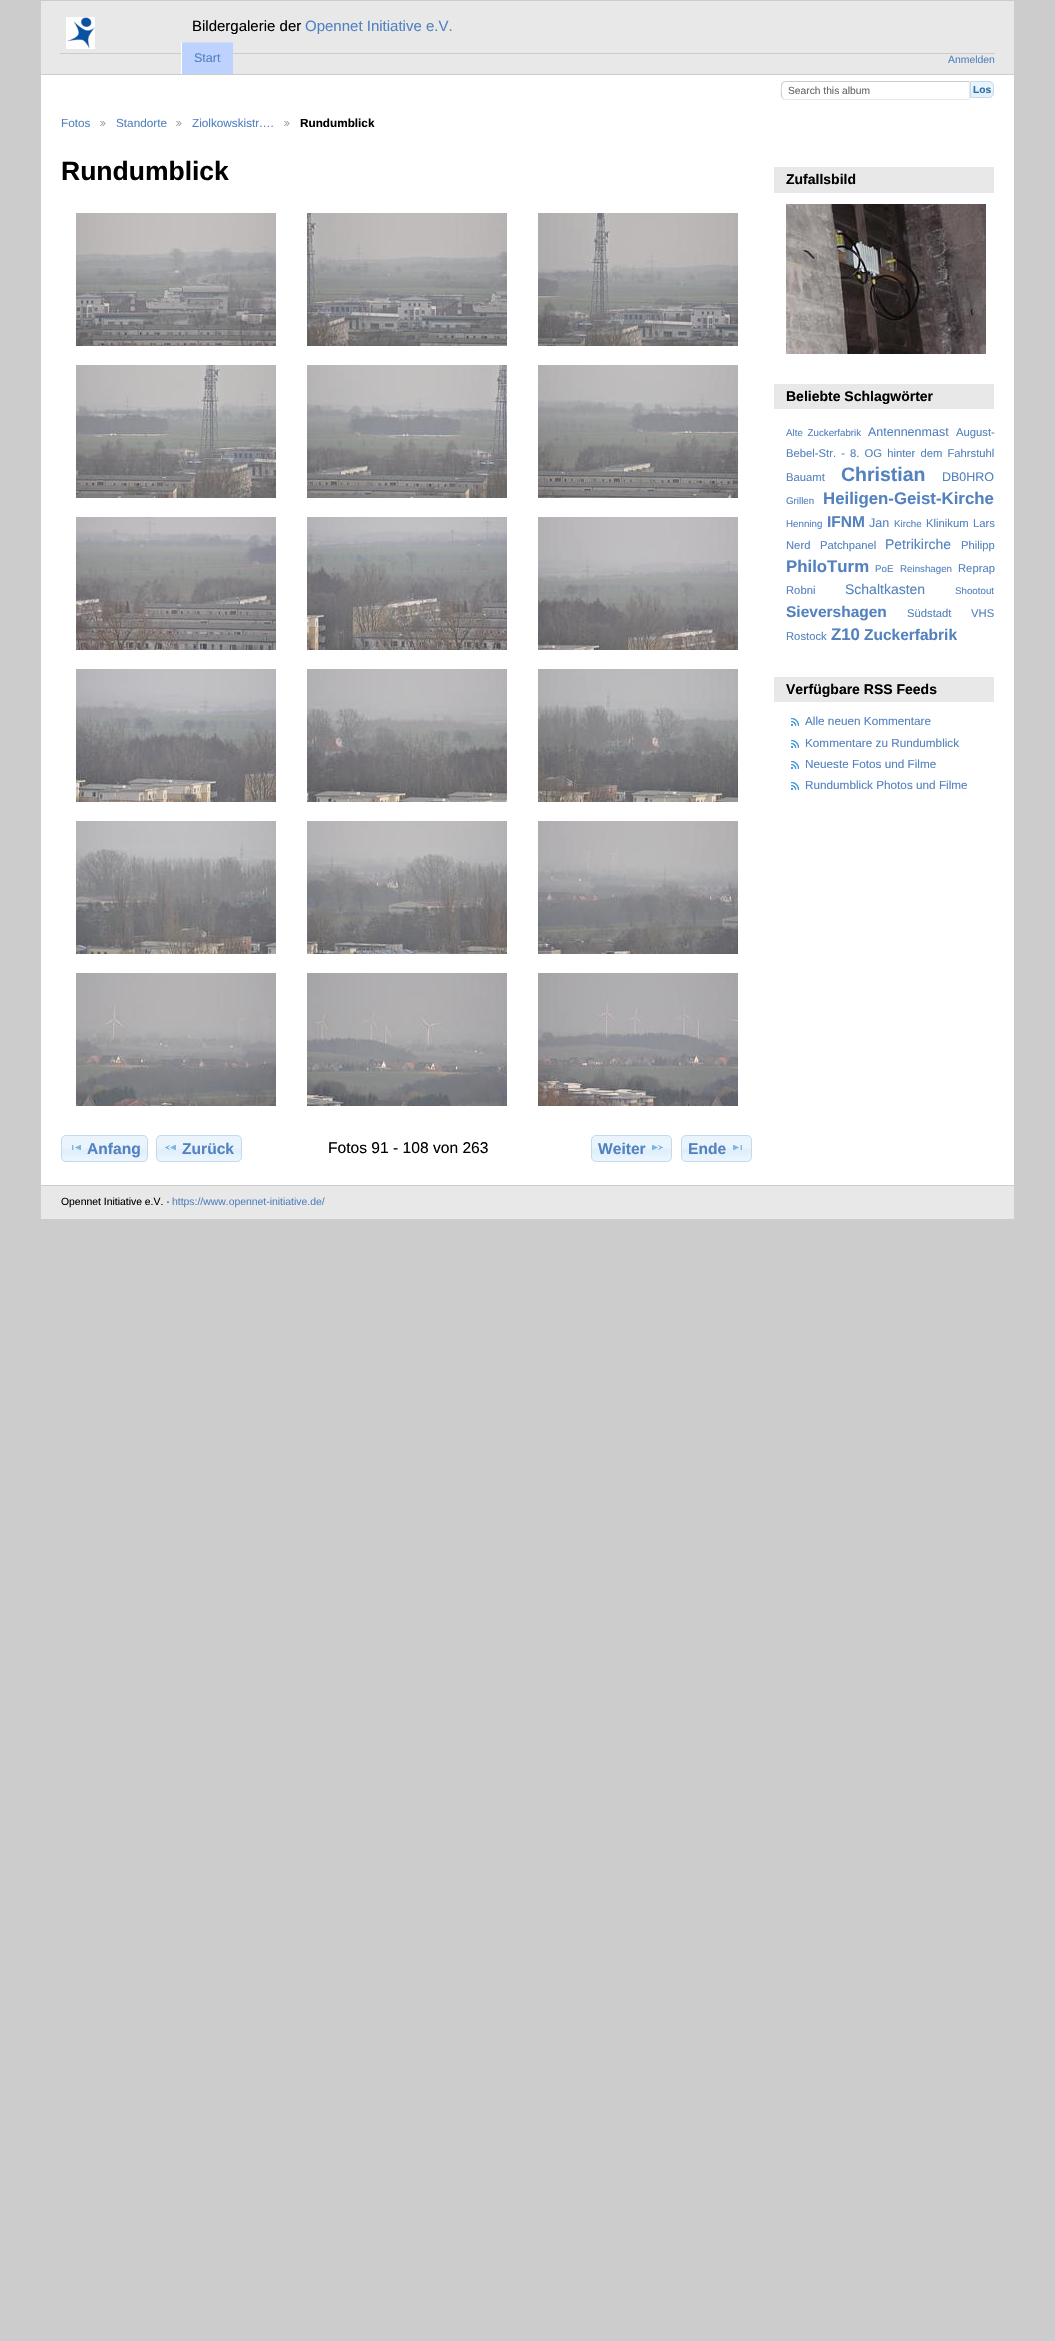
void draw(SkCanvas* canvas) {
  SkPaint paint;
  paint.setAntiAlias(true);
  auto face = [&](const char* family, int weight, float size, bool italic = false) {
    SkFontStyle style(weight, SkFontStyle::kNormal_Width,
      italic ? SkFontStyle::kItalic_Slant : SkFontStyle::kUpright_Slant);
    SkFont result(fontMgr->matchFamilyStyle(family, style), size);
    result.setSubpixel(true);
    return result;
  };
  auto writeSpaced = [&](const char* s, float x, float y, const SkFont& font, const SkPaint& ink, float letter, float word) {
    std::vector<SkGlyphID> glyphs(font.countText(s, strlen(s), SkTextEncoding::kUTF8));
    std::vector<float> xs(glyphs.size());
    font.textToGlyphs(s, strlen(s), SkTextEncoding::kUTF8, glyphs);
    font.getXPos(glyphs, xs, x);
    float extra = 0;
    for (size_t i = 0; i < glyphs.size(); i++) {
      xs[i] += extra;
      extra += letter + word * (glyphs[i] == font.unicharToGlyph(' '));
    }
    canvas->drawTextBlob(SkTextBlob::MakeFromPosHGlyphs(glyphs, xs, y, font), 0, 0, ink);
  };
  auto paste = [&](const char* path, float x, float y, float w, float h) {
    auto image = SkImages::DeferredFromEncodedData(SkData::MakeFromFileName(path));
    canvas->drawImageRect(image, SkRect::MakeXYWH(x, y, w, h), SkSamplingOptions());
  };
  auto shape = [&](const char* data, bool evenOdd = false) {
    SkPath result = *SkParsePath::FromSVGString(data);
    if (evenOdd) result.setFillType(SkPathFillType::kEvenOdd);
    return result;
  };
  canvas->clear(0xffcccccc);
  {
    const struct { float x, y, w, h; SkColor color; } items[] = {
      {41, 75, 973, 1110, 0xffffffff},
      {41, 1, 973, 73, 0xffe8e8e8},
      {60, 53, 127, 1, 0xffcccccc},
    };
    for (auto [x, y, w, h, color] : items) {
      paint.setColor(color);
      canvas->drawRect(SkRect::MakeXYWH(x, y, w, h), paint);
    }
  }
  paste("img/1.png", 66, 17, 29, 32);
  {
    const struct { float x, y, w, h; SkColor color; } items[] = {
      {233, 53, 762, 1, 0xffcccccc},
      {182, 43, 51, 31, 0xffbdd2ff},
      {181, 42, 52, 1, 0xffcfdeff},
      {181, 42, 1, 32, 0xffffffff},
    };
    for (auto [x, y, w, h, color] : items) {
      paint.setColor(color);
      canvas->drawRect(SkRect::MakeXYWH(x, y, w, h), paint);
    }
  }
  paint.setColor(0xffcccccc);
  canvas->drawPath(shape("M786 81C784 81 783 82 782 82L783 83C784 82 785 82 786 82H969L970 81Z"), paint);
  paint.setColor(0xffe8e8e8);
  canvas->drawPath(shape("M970 81L969 82V99L970 100Z"), paint);
  canvas->drawPath(shape("M970 100L969 99H785L783 98L782 99C783 100 784 100 786 100Z"), paint);
  paint.setColor(0xffcccccc);
  canvas->drawPath(shape("M781 86C781 89 780 96.5 782.5 98.5L783 98C781.5 95.5 781.5 88 782 85.5L783 83L782.5 82.5C781.5 83 781 84.5 781 86Z"), paint);
  paste("img/2.png", 971, 81, 23, 17);
  paint.setStroke(true);
  paint.setStrokeWidth(1);
  paint.setColor(0xffc5dbec);
  canvas->drawPath(shape("M970.5 81.5H989C991.5 81.5 993.5 83.5 993.5 86V93C993.5 95.5 991.5 97.5 989 97.5H970.5Z"), paint);
  paste("img/3.png", 100, 121, 6, 5);
  paste("img/3.png", 176, 121, 6, 5);
  paste("img/3.png", 284, 121, 6, 5);
  paste("img/4.png", 76, 213, 200, 133);
  paste("img/5.png", 307, 213, 200, 133);
  paste("img/6.png", 538, 213, 200, 133);
  paste("img/7.png", 76, 365, 200, 133);
  paste("img/8.png", 307, 365, 200, 133);
  paste("img/9.png", 538, 365, 200, 133);
  paste("img/10.png", 76, 517, 200, 133);
  paste("img/11.png", 307, 517, 200, 133);
  paste("img/12.png", 538, 517, 200, 133);
  paste("img/13.png", 76, 669, 200, 133);
  paste("img/14.png", 307, 669, 200, 133);
  paste("img/15.png", 538, 669, 200, 133);
  paste("img/16.png", 76, 821, 200, 133);
  paste("img/17.png", 307, 821, 200, 133);
  paste("img/18.png", 538, 821, 200, 133);
  paste("img/19.png", 76, 973, 200, 133);
  paste("img/20.png", 307, 973, 200, 133);
  paste("img/21.png", 538, 973, 200, 133);
  paste("img/22.png", 61, 1135, 87, 27);
  canvas->drawRoundRect(SkRect::MakeXYWH(61.5f, 1135.5f, 86, 26), 4.5f, 4.5f, paint);
  paste("img/23.png", 72, 1145, 9, 5);
  paste("img/24.png", 156, 1135, 86, 27);
  canvas->drawRoundRect(SkRect::MakeXYWH(156.5f, 1135.5f, 85, 26), 4.5f, 4.5f, paint);
  paste("img/25.png", 165, 1145, 11, 5);
  paste("img/26.png", 591, 1135, 81, 27);
  canvas->drawRoundRect(SkRect::MakeXYWH(591.5f, 1135.5f, 80, 26), 4.5f, 4.5f, paint);
  paste("img/27.png", 652, 1145, 11, 5);
  paste("img/28.png", 681, 1135, 71, 27);
  canvas->drawRoundRect(SkRect::MakeXYWH(681.5f, 1135.5f, 70, 26), 4.5f, 4.5f, paint);
  paste("img/29.png", 733, 1145, 9, 5);
  paint.setStroke(false);
  paint.setColor(0xffe8e8e8);
  canvas->drawRect(SkRect::MakeXYWH(774, 167, 220, 26), paint);
  paste("img/30.png", 786, 204, 200, 150);
  canvas->drawRect(SkRect::MakeXYWH(774, 384, 220, 25), paint);
  canvas->drawRect(SkRect::MakeXYWH(774, 677, 220, 25), paint);
  paste("img/31.png", 791, 718, 8, 8);
  paste("img/31.png", 791, 740, 8, 8);
  paste("img/31.png", 791, 761, 8, 8);
  paste("img/31.png", 791, 782, 8, 8);
  canvas->drawRect(SkRect::MakeXYWH(41, 1186, 973, 33), paint);
  auto f0 = face("Liberation Sans", 400, 15);
  paint.setColor(0xff000000);
  canvas->drawString("Bildergalerie der", 192, 31, f0, paint);
  paint.setColor(0xff5382bf);
  canvas->drawString("Opennet Initiative e.V.", 305, 31, f0, paint);
  auto f1 = face("Liberation Sans", 400, 12.5f);
  canvas->drawString("Start", 194, 62, f1, paint);
  auto f2 = face("Liberation Sans", 400, 10.4f);
  canvas->drawString("Anmelden", 948, 63, f2, paint);
  auto f3 = face("Liberation Sans", 400, 10.25f);
  paint.setColor(0xff666666);
  canvas->drawString("Search this album", 788, 94, f3, paint);
  auto f4 = face("Liberation Sans", 700, 10.25f);
  paint.setColor(0xff2e6e9e);
  canvas->drawString("Los", 973, 93, f4, paint);
  auto f5 = face("Liberation Sans", 400, 11.75f);
  paint.setColor(0xff5382bf);
  {
    const struct { const char* s; float x, y; } items[] = {
      {"Fotos", 61, 127},
      {"Standorte", 116, 127},
      {"Ziolkowskistr.…", 192, 127},
    };
    for (auto [s, x, y] : items) {
      canvas->drawString(s, x, y, f5, paint);
    }
  }
  auto f6 = face("Liberation Sans", 700, 11.75f);
  paint.setColor(0xff000000);
  canvas->drawString("Rundumblick", 300, 127, f6, paint);
  auto f7 = face("Liberation Sans", 700, 26.5f);
  canvas->drawString("Rundumblick", 61, 180, f7, paint);
  auto f8 = face("Liberation Sans", 700, 15.6f);
  paint.setColor(0xff5382bf);
  canvas->drawString("Anfang", 87, 1154, f8, paint);
  canvas->drawString("Zurück", 182, 1154, f8, paint);
  auto f9 = face("Liberation Sans", 400, 15.6f);
  paint.setColor(0xff000000);
  canvas->drawString("Fotos 91 - 108 von 263", 328, 1153, f9, paint);
  paint.setColor(0xff5382bf);
  canvas->drawString("Weiter", 598, 1154, f8, paint);
  canvas->drawString("Ende", 688, 1154, f8, paint);
  auto f10 = face("Liberation Sans", 700, 14);
  paint.setColor(0xff000000);
  canvas->drawString("Zufallsbild", 786, 184, f10, paint);
  canvas->drawString("Beliebte Schlagwörter", 786, 401, f10, paint);
  auto f11 = face("Liberation Sans", 400, 9.75f);
  paint.setColor(0xff5382bf);
  writeSpaced("Alte Zuckerfabrik", 786, 436, f11, paint, 0, 2);
  canvas->drawString("Antennenmast", 868, 436, f1, paint);
  auto f12 = face("Liberation Sans", 400, 11.25f);
  canvas->drawString("August-", 956, 436, f12, paint);
  writeSpaced("Bebel-Str. - 8. OG hinter dem Fahrstuhl", 786, 457, f12, paint, 0, 2);
  canvas->drawString("Bauamt", 786, 481, f12, paint);
  auto f13 = face("Liberation Sans", 700, 19.5f);
  canvas->drawString("Christian", 841, 481, f13, paint);
  canvas->drawString("DB0HRO", 942, 481, f1, paint);
  canvas->drawString("Grillen", 786, 504, f11, paint);
  auto f14 = face("Liberation Sans", 700, 16.8f);
  canvas->drawString("Heiligen-Geist-Kirche", 823, 504, f14, paint);
  canvas->drawString("Henning", 786, 527, f11, paint);
  auto f15 = face("Liberation Sans", 700, 15.5f);
  canvas->drawString("IFNM", 827, 527, f15, paint);
  canvas->drawString("Jan", 869, 527, f1, paint);
  canvas->drawString("Kirche", 894, 527, f11, paint);
  {
    const struct { const char* s; float x, y; } items[] = {
      {"Klinikum", 926, 527},
      {"Lars", 973, 527},
      {"Nerd", 786, 549},
      {"Patchpanel", 820, 549},
    };
    for (auto [s, x, y] : items) {
      canvas->drawString(s, x, y, f12, paint);
    }
  }
  auto f16 = face("Liberation Sans", 400, 14);
  canvas->drawString("Petrikirche", 885, 549, f16, paint);
  canvas->drawString("Philipp", 961, 549, f12, paint);
  canvas->drawString("PhiloTurm", 786, 572, f14, paint);
  canvas->drawString("PoE", 875, 572, f11, paint);
  canvas->drawString("Reinshagen", 900, 572, f11, paint);
  canvas->drawString("Reprap", 958, 572, f12, paint);
  canvas->drawString("Robni", 786, 594, f12, paint);
  canvas->drawString("Schaltkasten", 845, 594, f16, paint);
  canvas->drawString("Shootout", 955, 594, f11, paint);
  canvas->drawString("Sievershagen", 786, 617, f15, paint);
  {
    const struct { const char* s; float x, y; } items[] = {
      {"Südstadt", 907, 617},
      {"VHS", 971, 617},
      {"Rostock", 786, 640},
    };
    for (auto [s, x, y] : items) {
      canvas->drawString(s, x, y, f12, paint);
    }
  }
  canvas->drawString("Z10", 831, 640, f14, paint);
  canvas->drawString("Zuckerfabrik", 864, 640, f15, paint);
  paint.setColor(0xff000000);
  canvas->drawString("Verfügbare RSS Feeds", 786, 694, f10, paint);
  paint.setColor(0xff5382bf);
  {
    const struct { const char* s; float x, y; } items[] = {
      {"Alle neuen Kommentare", 805, 725},
      {"Kommentare zu Rundumblick", 805, 747},
      {"Neueste Fotos und Filme", 805, 768},
      {"Rundumblick Photos und Filme", 805, 789},
    };
    for (auto [s, x, y] : items) {
      canvas->drawString(s, x, y, f5, paint);
    }
  }
  paint.setColor(0xff000000);
  canvas->drawString("Opennet Initiative e.V. ·", 61, 1205, f2, paint);
  paint.setColor(0xff5382bf);
  canvas->drawString("https://www.opennet-initiative.de/", 172, 1205, f2, paint);
}
